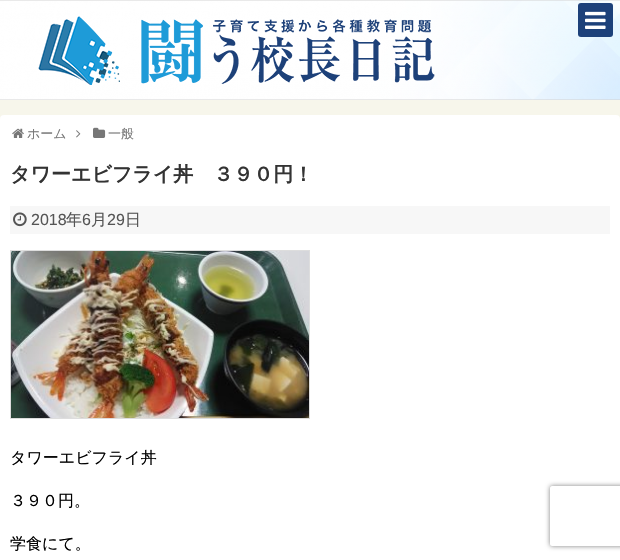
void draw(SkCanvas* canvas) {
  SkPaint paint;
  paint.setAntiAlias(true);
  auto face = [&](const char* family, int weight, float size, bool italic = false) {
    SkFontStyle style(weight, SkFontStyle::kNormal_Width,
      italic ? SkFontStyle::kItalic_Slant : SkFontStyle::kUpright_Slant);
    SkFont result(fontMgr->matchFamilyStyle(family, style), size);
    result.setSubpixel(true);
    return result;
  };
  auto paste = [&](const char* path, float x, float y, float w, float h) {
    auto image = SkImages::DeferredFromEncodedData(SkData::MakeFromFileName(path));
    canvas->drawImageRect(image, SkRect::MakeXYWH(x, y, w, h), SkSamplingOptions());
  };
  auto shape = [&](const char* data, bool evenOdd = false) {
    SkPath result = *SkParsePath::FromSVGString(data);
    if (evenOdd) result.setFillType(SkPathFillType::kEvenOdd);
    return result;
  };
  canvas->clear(0xfff7f6eb);
  paste("img/1.png", 0, 0, 620, 100);
  paste("img/2.png", 38, 16, 397, 69);
  paint.setColor(0xff1d417a);
  canvas->drawRoundRect(SkRect::MakeXYWH(578, 3, 35, 34), 3, 3, paint);
  paste("img/3.png", 585, 11, 21, 18);
  paint.setColor(0xffffffff);
  canvas->drawRoundRect(SkRect::MakeXYWH(0, 115, 620, 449), 4, 4, paint);
  paste("img/4.png", 12, 128, 12, 10);
  paste("img/5.png", 76, 130, 5, 8);
  paste("img/6.png", 93, 127, 13, 11);
  paint.setColor(0xfff7f7f7);
  canvas->drawRect(SkRect::MakeXYWH(10, 206, 600, 28), paint);
  paste("img/7.png", 13, 212, 14, 15);
  paint.setStroke(true);
  paint.setStrokeWidth(1);
  paint.setColor(0xffdddddd);
  canvas->drawRect(SkRect::MakeXYWH(10.5f, 250.5f, 299, 168), paint);
  paste("img/8.png", 11, 251, 298, 167);
  canvas->save();
  canvas->clipPath(shape("M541 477H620V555H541ZM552 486H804C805 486 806 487 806 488V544C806 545 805 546 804 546H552C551 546 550 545 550 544V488C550 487 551 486 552 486Z", true), true);
  paint.setStroke(false);
  paint.setColor(0xff808080);
  paint.setMaskFilter(SkMaskFilter::MakeBlur(kNormal_SkBlurStyle, 2.5f));
  canvas->drawRoundRect(SkRect::MakeXYWH(550, 486, 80, 60), 2, 2, paint);
  paint.setMaskFilter(nullptr);
  canvas->restore();
  auto f0 = face("WenQuanYi Zen Hei", 500, 13);
  paint.setColor(0xff777777);
  canvas->drawString("ホーム", 27, 138, f0, paint);
  canvas->drawString("一般", 108, 138, f0, paint);
  auto f1 = face("WenQuanYi Zen Hei", 700, 20);
  paint.setColor(0xff333333);
  canvas->drawString("タワーエビフライ丼　３９０円！", 10, 181, f1, paint);
  auto f2 = face("Liberation Sans", 400, 16);
  paint.setColor(0xff555555);
  canvas->drawString("2018", 31, 225, f2, paint);
  auto f3 = face("WenQuanYi Zen Hei", 500, 16);
  canvas->drawString("年", 66, 225, f3, paint);
  canvas->drawString("6", 82, 225, f2, paint);
  canvas->drawString("月", 91, 225, f3, paint);
  canvas->drawString("29", 107, 225, f2, paint);
  canvas->drawString("日", 125, 225, f3, paint);
  paint.setColor(0xff000000);
  {
    const struct { const char* s; float x, y; } items[] = {
      {"タワーエビフライ丼", 10, 463},
      {"３９０円。", 10, 506},
      {"学食にて。", 10, 549},
    };
    for (auto [s, x, y] : items) {
      canvas->drawString(s, x, y, f3, paint);
    }
  }
}
